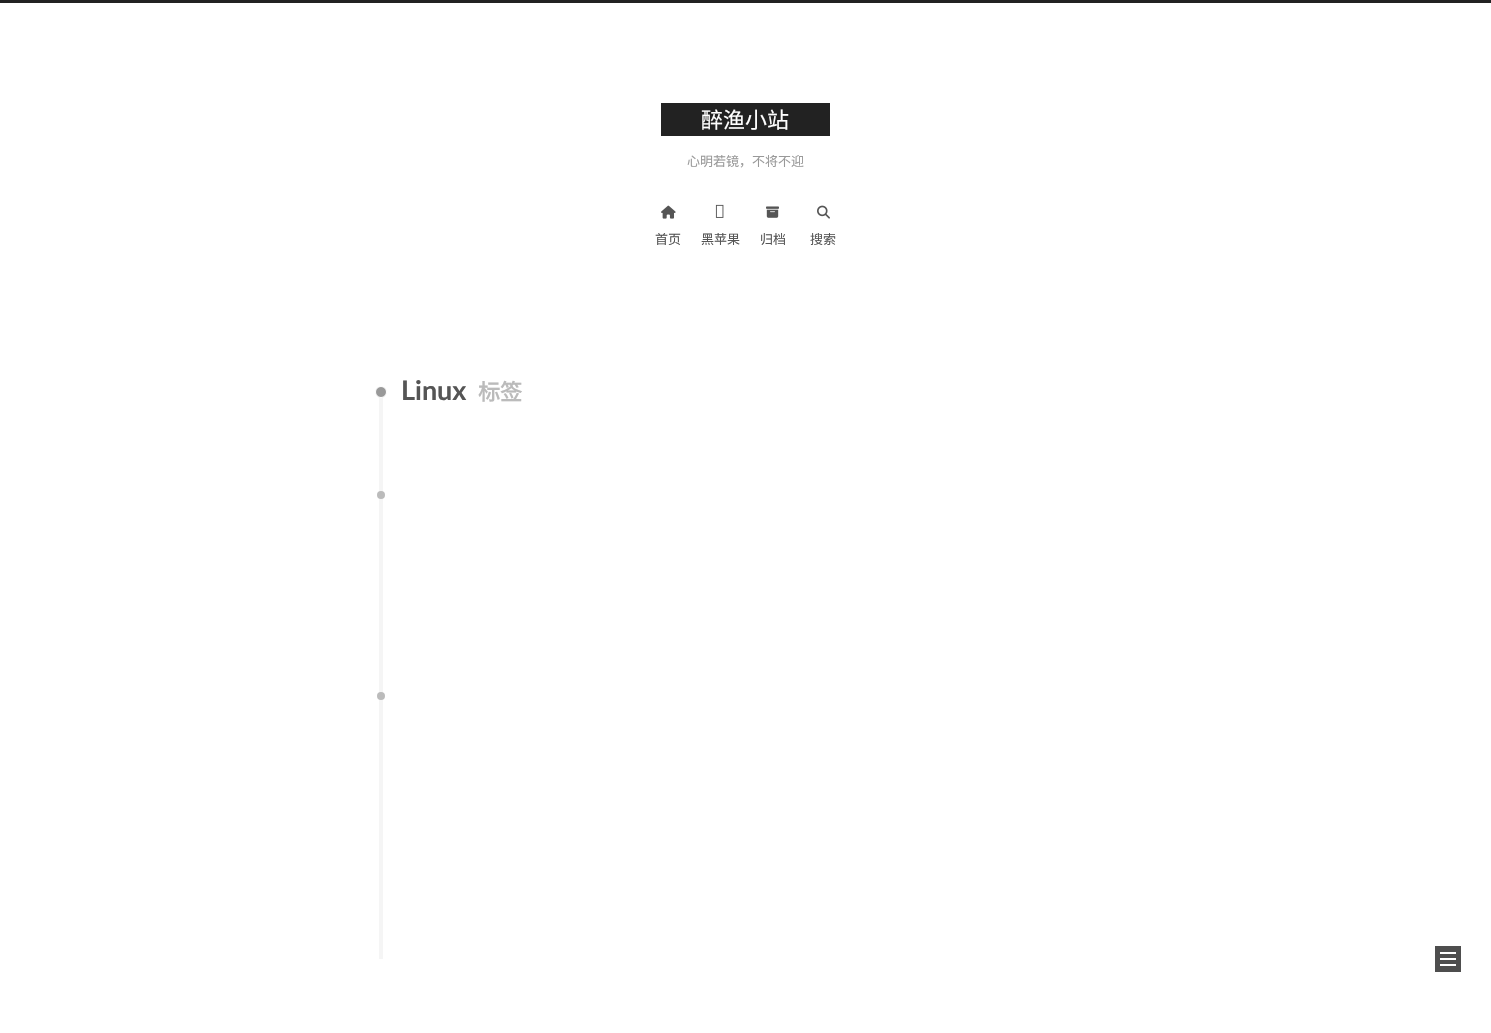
void draw(SkCanvas* canvas) {
  SkPaint paint;
  paint.setAntiAlias(true);
  auto face = [&](const char* family, int weight, float size, bool italic = false) {
    SkFontStyle style(weight, SkFontStyle::kNormal_Width,
      italic ? SkFontStyle::kItalic_Slant : SkFontStyle::kUpright_Slant);
    SkFont result(fontMgr->matchFamilyStyle(family, style), size);
    result.setSubpixel(true);
    return result;
  };
  auto paste = [&](const char* path, float x, float y, float w, float h) {
    auto image = SkImages::DeferredFromEncodedData(SkData::MakeFromFileName(path));
    canvas->drawImageRect(image, SkRect::MakeXYWH(x, y, w, h), SkSamplingOptions());
  };
  canvas->clear(0xffffffff);
  paint.setColor(0xff222222);
  canvas->drawRect(SkRect::MakeXYWH(0, 0, 1491, 3), paint);
  canvas->drawRect(SkRect::MakeXYWH(661, 103, 169, 33), paint);
  paste("img/1.png", 661, 205, 15, 14);
  paste("img/2.png", 715, 204, 9, 14);
  paste("img/3.png", 766, 206, 13, 12);
  paste("img/4.png", 817, 205, 13, 14);
  paint.setColor(0xfff5f5f5);
  canvas->drawRect(SkRect::MakeXYWH(379, 390, 4, 569), paint);
  paint.setColor(0xff999999);
  canvas->drawCircle(381, 392, 5.5f, paint);
  paint.setStroke(true);
  paint.setStrokeWidth(1);
  paint.setColor(0xffffffff);
  canvas->drawCircle(381, 392, 5.5f, paint);
  paint.setStroke(false);
  paint.setColor(0xffbbbbbb);
  canvas->drawCircle(381, 495, 4, paint);
  canvas->drawCircle(381, 696, 4, paint);
  {
    const struct { float x, y, w, h; SkColor color; } items[] = {
      {1435, 946, 26, 26, 0xff4e4e4e},
      {1440, 952, 16, 2, 0xffffffff},
      {1440, 958, 16, 2, 0xffffffff},
      {1440, 964, 16, 2, 0xffffffff},
    };
    for (auto [x, y, w, h, color] : items) {
      paint.setColor(color);
      canvas->drawRect(SkRect::MakeXYWH(x, y, w, h), paint);
    }
  }
  auto f0 = face("Noto Sans CJK SC", 400, 22);
  canvas->drawString("醉渔小站", 701, 128, f0, paint);
  auto f1 = face("Noto Sans CJK SC", 400, 13);
  paint.setColor(0xff999999);
  canvas->drawString("心明若镜，不将不迎", 687, 166, f1, paint);
  paint.setColor(0xff555555);
  {
    const struct { const char* s; float x, y; } items[] = {
      {"首页", 655, 244},
      {"黑苹果", 701, 244},
      {"归档", 760, 244},
      {"搜索", 810, 244},
    };
    for (auto [s, x, y] : items) {
      canvas->drawString(s, x, y, f1, paint);
    }
  }
  auto f2 = face("Lato", 700, 27);
  canvas->drawString("Linux", 401, 400, f2, paint);
  auto f3 = face("Noto Sans CJK SC", 700, 22);
  paint.setColor(0xffbbbbbb);
  canvas->drawString("标签", 478, 400, f3, paint);
}
